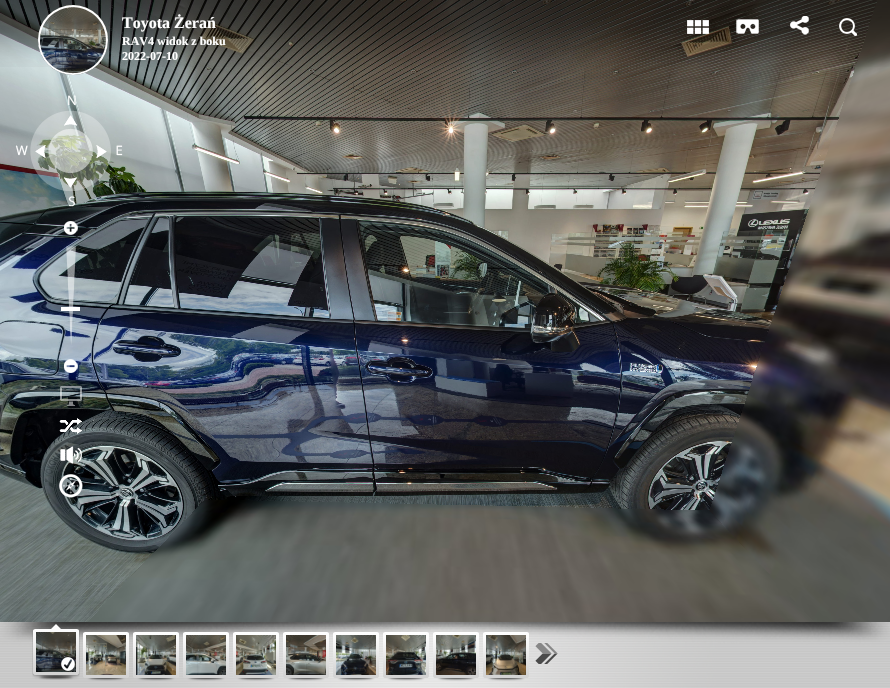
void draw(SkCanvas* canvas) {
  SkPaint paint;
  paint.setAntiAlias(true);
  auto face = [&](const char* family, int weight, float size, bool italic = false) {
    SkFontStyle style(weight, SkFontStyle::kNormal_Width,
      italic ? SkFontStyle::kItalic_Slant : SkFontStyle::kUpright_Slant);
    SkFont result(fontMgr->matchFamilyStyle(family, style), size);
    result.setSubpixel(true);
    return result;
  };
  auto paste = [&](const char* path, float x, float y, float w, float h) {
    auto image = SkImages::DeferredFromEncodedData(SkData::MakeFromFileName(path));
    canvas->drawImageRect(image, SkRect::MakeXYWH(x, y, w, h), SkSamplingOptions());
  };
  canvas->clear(0xffffffff);
  paste("img/1.png", 0, 0, 890, 622);
  paste("img/2.png", 0, 0, 890, 67);
  paste("img/3.png", 38, 5, 70, 70);
  paste("img/4.png", 38, 5, 70, 70);
  paste("img/5.png", 687, 20, 22, 14);
  paste("img/6.png", 736, 19, 23, 15);
  paste("img/7.png", 790, 16, 19, 19);
  paste("img/8.png", 839, 18, 18, 18);
  paste("img/9.png", 30, 110, 81, 82);
  paste("img/10.png", 15, 95, 108, 112);
  paste("img/11.png", 64, 115, 13, 11);
  paste("img/12.png", 35, 145, 11, 13);
  paste("img/13.png", 48, 128, 45, 45);
  paste("img/14.png", 96, 145, 11, 13);
  paste("img/15.png", 64, 177, 13, 11);
  paste("img/16.png", 64, 221, 14, 14);
  paste("img/17.png", 66, 246, 10, 99);
  paint.setColor(0xffffffff);
  canvas->drawRect(SkRect::MakeXYWH(61, 307, 19, 4), paint);
  paste("img/18.png", 64, 359, 14, 14);
  paste("img/19.png", 60, 386, 22, 20);
  paste("img/20.png", 59, 418, 23, 16);
  paste("img/21.png", 60, 446, 22, 18);
  paste("img/22.png", 59, 474, 24, 24);
  paste("img/23.png", 0, 622, 890, 66);
  paste("img/24.png", 32, 624, 48, 56);
  paste("img/25.png", 36, 632, 40, 40);
  paste("img/26.png", 36, 632, 40, 40);
  paste("img/27.png", 83, 632, 46, 49);
  paste("img/28.png", 86, 635, 40, 40);
  paste("img/29.png", 133, 632, 46, 49);
  paste("img/30.png", 136, 635, 40, 40);
  paste("img/31.png", 183, 632, 46, 49);
  paste("img/32.png", 186, 635, 40, 40);
  paste("img/33.png", 233, 632, 46, 49);
  paste("img/34.png", 236, 635, 40, 40);
  paste("img/35.png", 283, 632, 46, 49);
  paste("img/36.png", 286, 635, 40, 40);
  paste("img/37.png", 333, 632, 46, 49);
  paste("img/38.png", 336, 635, 40, 40);
  paste("img/39.png", 383, 632, 46, 49);
  paste("img/40.png", 386, 635, 40, 40);
  paste("img/41.png", 433, 632, 46, 49);
  paste("img/42.png", 436, 635, 40, 40);
  paste("img/43.png", 483, 632, 46, 49);
  paste("img/44.png", 486, 635, 40, 40);
  paste("img/45.png", 535, 643, 23, 21);
  auto f0 = face("Liberation Serif", 700, 16);
  canvas->drawString("Toyota Żerań", 122, 28, f0, paint);
  auto f1 = face("Liberation Serif", 700, 12);
  canvas->drawString("RAV4 widok z boku", 122, 45, f1, paint);
  canvas->drawString("2022-07-10", 122, 60, f1, paint);
}
